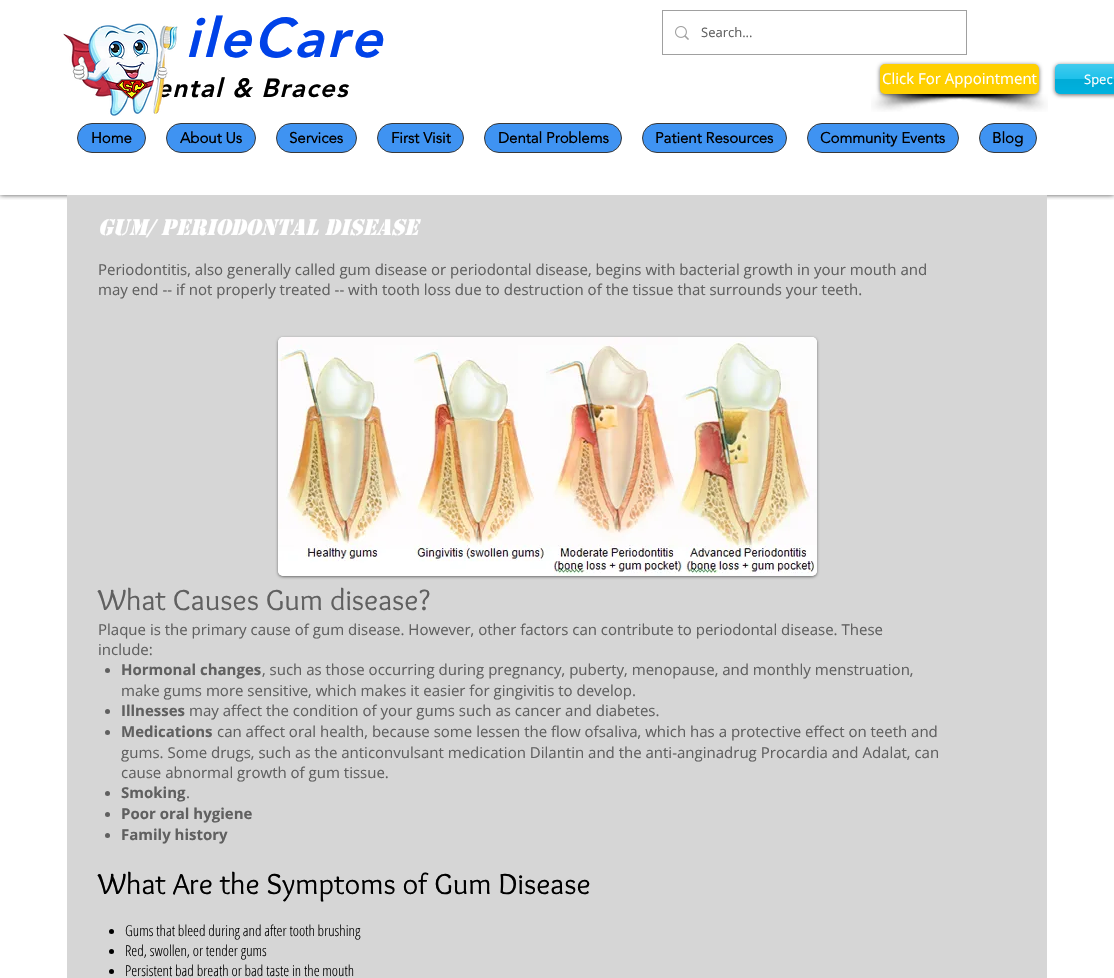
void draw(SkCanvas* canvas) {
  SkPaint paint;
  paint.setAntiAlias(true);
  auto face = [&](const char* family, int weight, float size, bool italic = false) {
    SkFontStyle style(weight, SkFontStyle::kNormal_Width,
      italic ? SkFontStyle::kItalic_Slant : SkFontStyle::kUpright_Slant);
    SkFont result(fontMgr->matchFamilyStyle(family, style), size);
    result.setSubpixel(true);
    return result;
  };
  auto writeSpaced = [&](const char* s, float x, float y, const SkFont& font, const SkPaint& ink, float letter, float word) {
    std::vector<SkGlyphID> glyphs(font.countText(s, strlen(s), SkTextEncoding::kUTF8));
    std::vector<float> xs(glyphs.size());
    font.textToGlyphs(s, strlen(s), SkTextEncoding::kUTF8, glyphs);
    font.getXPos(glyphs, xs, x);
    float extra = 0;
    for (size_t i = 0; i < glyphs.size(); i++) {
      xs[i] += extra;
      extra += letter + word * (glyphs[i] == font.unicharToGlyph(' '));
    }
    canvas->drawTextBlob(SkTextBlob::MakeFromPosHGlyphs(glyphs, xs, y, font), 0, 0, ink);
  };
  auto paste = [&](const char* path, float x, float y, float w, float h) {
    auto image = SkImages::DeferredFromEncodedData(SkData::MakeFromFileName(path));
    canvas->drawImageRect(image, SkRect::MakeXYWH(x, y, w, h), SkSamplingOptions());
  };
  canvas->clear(0xffffffff);
  canvas->save();
  canvas->clipRect(SkRect::MakeXYWH(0, 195, 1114, 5));
  paint.setColor(0xb3000000);
  paint.setMaskFilter(SkMaskFilter::MakeBlur(kNormal_SkBlurStyle, 2.5f));
  canvas->drawRect(SkRect::MakeXYWH(0, 0, 1114, 195), paint);
  paint.setMaskFilter(nullptr);
  canvas->restore();
  paint.setStroke(true);
  paint.setStrokeWidth(1);
  paint.setColor(0xffa0a0a0);
  canvas->drawRect(SkRect::MakeXYWH(662.5f, 10.5f, 304, 44), paint);
  paste("img/1.png", 675, 26, 14, 14);
  paste("img/2.png", 871, 94, 154, 18);
  paste("img/3.png", 907, 94, 141, 18);
  paint.setStroke(false);
  paint.setColor(0x99000000);
  paint.setMaskFilter(SkMaskFilter::MakeBlur(kNormal_SkBlurStyle, 2));
  canvas->drawRoundRect(SkRect::MakeXYWH(880, 65, 159, 30), 5, 5, paint);
  paint.setMaskFilter(nullptr);
  paint.setColor(0xffffd000);
  canvas->drawRoundRect(SkRect::MakeXYWH(880, 64, 159, 30), 5, 5, paint);
  paint.setColor(0x99000000);
  paint.setMaskFilter(SkMaskFilter::MakeBlur(kNormal_SkBlurStyle, 2));
  canvas->drawRoundRect(SkRect::MakeXYWH(1055, 65, 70, 30), 5, 5, paint);
  paint.setMaskFilter(nullptr);
  paint.setColor(0xff00b9e8);
  canvas->drawRoundRect(SkRect::MakeXYWH(1055, 64, 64, 30), 5, 5, paint);
  paste("img/4.png", 1055, 64, 59, 30);
  paint.setColor(0xff3f93f2);
  canvas->drawRoundRect(SkRect::MakeXYWH(77.5f, 123.5f, 68, 29), 14.5f, 14.5f, paint);
  paint.setStroke(true);
  paint.setColor(0xff383838);
  canvas->drawRoundRect(SkRect::MakeXYWH(77.5f, 123.5f, 68, 29), 14.5f, 14.5f, paint);
  paint.setStroke(false);
  paint.setColor(0xff3f93f2);
  canvas->drawRoundRect(SkRect::MakeXYWH(166.5f, 123.5f, 89, 29), 14.5f, 14.5f, paint);
  paint.setStroke(true);
  paint.setColor(0xff383838);
  canvas->drawRoundRect(SkRect::MakeXYWH(166.5f, 123.5f, 89, 29), 14.5f, 14.5f, paint);
  paint.setStroke(false);
  paint.setColor(0xff3f93f2);
  canvas->drawRoundRect(SkRect::MakeXYWH(276.5f, 123.5f, 80, 29), 14.5f, 14.5f, paint);
  paint.setStroke(true);
  paint.setColor(0xff383838);
  canvas->drawRoundRect(SkRect::MakeXYWH(276.5f, 123.5f, 80, 29), 14.5f, 14.5f, paint);
  paint.setStroke(false);
  paint.setColor(0xff3f93f2);
  canvas->drawRoundRect(SkRect::MakeXYWH(377.5f, 123.5f, 86, 29), 14.5f, 14.5f, paint);
  paint.setStroke(true);
  paint.setColor(0xff383838);
  canvas->drawRoundRect(SkRect::MakeXYWH(377.5f, 123.5f, 86, 29), 14.5f, 14.5f, paint);
  paint.setStroke(false);
  paint.setColor(0xff3f93f2);
  canvas->drawRoundRect(SkRect::MakeXYWH(484.5f, 123.5f, 137, 29), 14.5f, 14.5f, paint);
  paint.setStroke(true);
  paint.setColor(0xff383838);
  canvas->drawRoundRect(SkRect::MakeXYWH(484.5f, 123.5f, 137, 29), 14.5f, 14.5f, paint);
  paint.setStroke(false);
  paint.setColor(0xff3f93f2);
  canvas->drawRoundRect(SkRect::MakeXYWH(642.5f, 123.5f, 144, 29), 14.5f, 14.5f, paint);
  paint.setStroke(true);
  paint.setColor(0xff383838);
  canvas->drawRoundRect(SkRect::MakeXYWH(642.5f, 123.5f, 144, 29), 14.5f, 14.5f, paint);
  paint.setStroke(false);
  paint.setColor(0xff3f93f2);
  canvas->drawRoundRect(SkRect::MakeXYWH(807.5f, 123.5f, 151, 29), 14.5f, 14.5f, paint);
  paint.setStroke(true);
  paint.setColor(0xff383838);
  canvas->drawRoundRect(SkRect::MakeXYWH(807.5f, 123.5f, 151, 29), 14.5f, 14.5f, paint);
  paint.setStroke(false);
  paint.setColor(0xff3f93f2);
  canvas->drawRoundRect(SkRect::MakeXYWH(979.5f, 123.5f, 57, 29), 14.5f, 14.5f, paint);
  paint.setStroke(true);
  paint.setColor(0xff383838);
  canvas->drawRoundRect(SkRect::MakeXYWH(979.5f, 123.5f, 57, 29), 14.5f, 14.5f, paint);
  paint.setStroke(false);
  paint.setColor(0xffd6d6d6);
  canvas->drawRect(SkRect::MakeXYWH(67, 195, 980, 783), paint);
  paint.setColor(0xff606060);
  canvas->drawCircle(107.5f, 670.5f, 2.5f, paint);
  canvas->drawCircle(107.5f, 711.5f, 2.5f, paint);
  canvas->drawCircle(107.5f, 732.5f, 2.5f, paint);
  canvas->drawCircle(107.5f, 793.5f, 2.5f, paint);
  canvas->drawCircle(107.5f, 814.5f, 2.5f, paint);
  canvas->drawCircle(107.5f, 835.5f, 2.5f, paint);
  paint.setColor(0xff000000);
  canvas->drawCircle(111.5f, 931.5f, 2.5f, paint);
  canvas->drawCircle(111.5f, 951.5f, 2.5f, paint);
  canvas->drawCircle(111.5f, 971.5f, 2.5f, paint);
  paint.setColor(0x80000000);
  paint.setMaskFilter(SkMaskFilter::MakeBlur(kNormal_SkBlurStyle, 1.5f));
  canvas->drawRoundRect(SkRect::MakeXYWH(278, 338, 539, 239), 5, 5, paint);
  paint.setMaskFilter(nullptr);
  paint.setColor(0xffffffff);
  canvas->drawRoundRect(SkRect::MakeXYWH(278, 337, 539, 239), 5, 5, paint);
  paste("img/6.png", 278, 337, 539, 239);
  auto f0 = face("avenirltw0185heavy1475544", 900, 55, true);
  paint.setColor(0xff0042e8);
  writeSpaced("ileCare", 185, 57, f0, paint, 2.75f, 0);
  auto f1 = face("Open Sans", 400, 13);
  paint.setColor(0xff606060);
  canvas->drawString("Search...", 701, 37, f1, paint);
  auto f2 = face("avenirltw0185heavy1475544", 900, 26, true);
  paint.setColor(0xff000000);
  writeSpaced("ental & Braces", 156, 97, f2, paint, 1.25f, 0);
  auto f3 = face("Open Sans", 400, 15);
  paint.setColor(0xffffffff);
  canvas->drawString("Click For Appointment", 882, 84, f3, paint);
  canvas->drawString("Spec", 1084, 84, f1, paint);
  auto f4 = face("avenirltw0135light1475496", 700, 15);
  paint.setColor(0xff000000);
  {
    const struct { const char* s; float x, y; } items[] = {
      {"Home", 91, 143},
      {"About Us", 180, 143},
      {"Services", 289, 143},
      {"First Visit", 391, 143},
      {"Dental Problems", 498, 143},
      {"Patient Resources", 655, 143},
      {"Community Events", 820, 143},
      {"Blog", 992, 143},
    };
    for (auto [s, x, y] : items) {
      canvas->drawString(s, x, y, f4, paint);
    }
  }
  paste("img/5.png", 63, 23, 115, 93);
  auto f5 = face("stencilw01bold", 700, 21, true);
  paint.setColor(0xffffffff);
  canvas->drawString("Gum/ Periodontal Disease", 98, 235, f5, paint);
  paint.setColor(0xff606060);
  canvas->drawString("Periodontitis, also generally called gum disease or periodontal disease, begins with bacterial growth in your mouth and", 98, 275, f3, paint);
  canvas->drawString("may end -- if not properly treated -- with tooth loss due to destruction of the tissue that surrounds your teeth.", 98, 295, f3, paint);
  auto f6 = face("Overlock", 400, 30);
  canvas->drawString("What Causes Gum disease?", 98, 610, f6, paint);
  canvas->drawString("Plaque is the primary cause of gum disease. However, other factors can contribute to periodontal disease. These", 98, 635, f3, paint);
  canvas->drawString("include:", 98, 655, f3, paint);
  auto f7 = face("Open Sans", 700, 15);
  canvas->drawString("Hormonal changes", 121, 675, f7, paint);
  canvas->drawString(", such as those occurring during pregnancy, puberty, menopause, and monthly menstruation,", 262, 675, f3, paint);
  canvas->drawString("make gums more sensitive, which makes it easier for gingivitis to develop.", 121, 696, f3, paint);
  canvas->drawString("Illnesses", 121, 716, f7, paint);
  canvas->drawString("may affect the condition of your gums such as cancer and diabetes.", 189, 716, f3, paint);
  canvas->drawString("Medications", 121, 737, f7, paint);
  {
    const struct { const char* s; float x, y; } items[] = {
      {"can affect oral health, because some lessen the flow ofsaliva, which has a protective effect on teeth and", 217, 737},
      {"gums. Some drugs, such as the anticonvulsant medication Dilantin and the anti-anginadrug Procardia and Adalat, can", 121, 758},
      {"cause abnormal growth of gum tissue.", 121, 778},
    };
    for (auto [s, x, y] : items) {
      canvas->drawString(s, x, y, f3, paint);
    }
  }
  canvas->drawString("Smoking", 121, 798, f7, paint);
  canvas->drawString(".", 186, 798, f3, paint);
  canvas->drawString("Poor oral hygiene", 121, 819, f7, paint);
  canvas->drawString("Family history", 121, 840, f7, paint);
  paint.setColor(0xff000000);
  canvas->drawString("What Are the Symptoms of Gum Disease", 98, 894, f6, paint);
  auto f8 = face("Open Sans Condensed", 300, 15);
  {
    const struct { const char* s; float x, y; } items[] = {
      {"Gums that bleed during and after tooth brushing", 125, 936},
      {"Red, swollen, or tender gums", 125, 956},
      {"Persistent bad breath or bad taste in the mouth", 125, 976},
    };
    for (auto [s, x, y] : items) {
      canvas->drawString(s, x, y, f8, paint);
    }
  }
}
